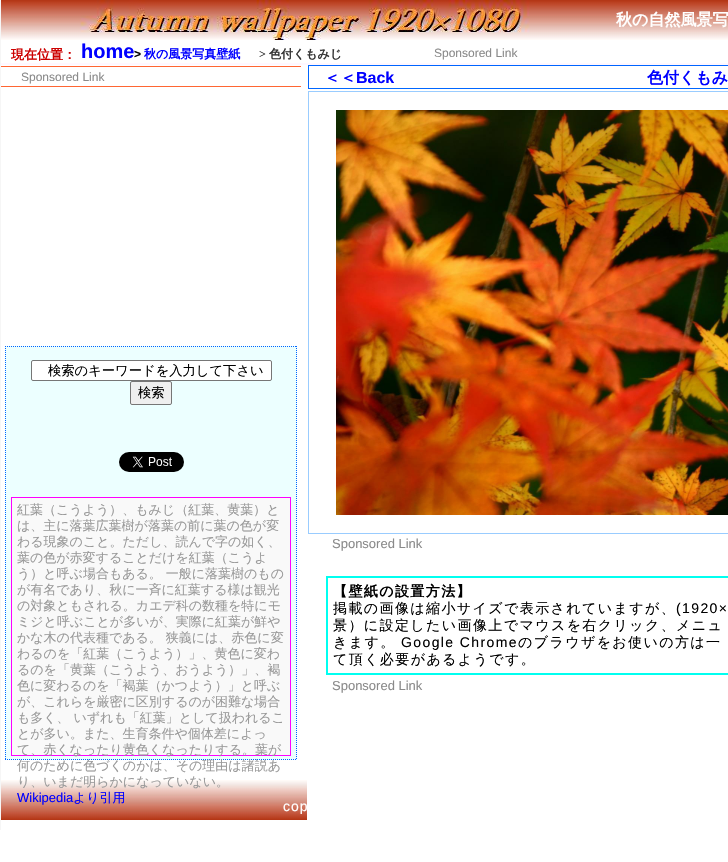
void draw(SkCanvas* canvas) {
  SkPaint paint;
  paint.setAntiAlias(true);
  auto face = [&](const char* family, int weight, float size, bool italic = false) {
    SkFontStyle style(weight, SkFontStyle::kNormal_Width,
      italic ? SkFontStyle::kItalic_Slant : SkFontStyle::kUpright_Slant);
    SkFont result(fontMgr->matchFamilyStyle(family, style), size);
    result.setSubpixel(true);
    return result;
  };
  auto writeSpaced = [&](const char* s, float x, float y, const SkFont& font, const SkPaint& ink, float letter, float word) {
    std::vector<SkGlyphID> glyphs(font.countText(s, strlen(s), SkTextEncoding::kUTF8));
    std::vector<float> xs(glyphs.size());
    font.textToGlyphs(s, strlen(s), SkTextEncoding::kUTF8, glyphs);
    font.getXPos(glyphs, xs, x);
    float extra = 0;
    for (size_t i = 0; i < glyphs.size(); i++) {
      xs[i] += extra;
      extra += letter + word * (glyphs[i] == font.unicharToGlyph(' '));
    }
    canvas->drawTextBlob(SkTextBlob::MakeFromPosHGlyphs(glyphs, xs, y, font), 0, 0, ink);
  };
  auto paste = [&](const char* path, float x, float y, float w, float h) {
    auto image = SkImages::DeferredFromEncodedData(SkData::MakeFromFileName(path));
    canvas->drawImageRect(image, SkRect::MakeXYWH(x, y, w, h), SkSamplingOptions());
  };
  auto shape = [&](const char* data, bool evenOdd = false) {
    SkPath result = *SkParsePath::FromSVGString(data);
    if (evenOdd) result.setFillType(SkPathFillType::kEvenOdd);
    return result;
  };
  canvas->clear(0xffffffff);
  paint.setColor(0xfff6f6f6);
  canvas->drawRect(SkRect::MakeXYWH(0, 0, 1, 830), paint);
  paste("img/1.png", 1, 0, 727, 40);
  {
    const struct { float x, y, w, h; SkColor color; } items[] = {
      {1, 63, 727, 2, 0xfffff7ff},
      {1, 66, 300, 1, 0xffff6633},
      {1, 86, 300, 1, 0xffff6633},
      {5, 346, 292, 414, 0xffecffff},
    };
    for (auto [x, y, w, h, color] : items) {
      paint.setColor(color);
      canvas->drawRect(SkRect::MakeXYWH(x, y, w, h), paint);
    }
  }
  paint.setStroke(true);
  paint.setStrokeWidth(1);
  paint.setColor(0xff0066ff);
  paint.setPathEffect(SkDashPathEffect::Make({{1, 1}}, 0));
  canvas->drawPath(shape("M5 346.5H297"), paint);
  paint.setPathEffect(nullptr);
  paint.setPathEffect(SkDashPathEffect::Make({{1, 1}}, 0));
  canvas->drawPath(shape("M296.5 346V760"), paint);
  paint.setPathEffect(nullptr);
  paint.setPathEffect(SkDashPathEffect::Make({{1, 1}}, 0));
  canvas->drawPath(shape("M5 759.5H297"), paint);
  paint.setPathEffect(nullptr);
  paint.setPathEffect(SkDashPathEffect::Make({{1, 1}}, 0));
  canvas->drawPath(shape("M5.5 346V760"), paint);
  paint.setPathEffect(nullptr);
  paint.setStroke(false);
  paint.setColor(0xffffffff);
  canvas->drawRoundRect(SkRect::MakeXYWH(31.5f, 360.5f, 240, 20), 1.5f, 1.5f, paint);
  paint.setStroke(true);
  paint.setColor(0xff767676);
  canvas->drawRoundRect(SkRect::MakeXYWH(31.5f, 360.5f, 240, 20), 1.5f, 1.5f, paint);
  paint.setStroke(false);
  paint.setColor(0xffefefef);
  canvas->drawRoundRect(SkRect::MakeXYWH(130.5f, 381.5f, 41, 23), 1.5f, 1.5f, paint);
  paint.setStroke(true);
  paint.setColor(0xff767676);
  canvas->drawRoundRect(SkRect::MakeXYWH(130.5f, 381.5f, 41, 23), 1.5f, 1.5f, paint);
  paste("img/2.png", 119, 452, 65, 20);
  paint.setStroke(false);
  paint.setColor(0xfff9f9f9);
  canvas->drawRect(SkRect::MakeXYWH(11.5f, 497.5f, 279, 258), paint);
  paint.setStroke(true);
  paint.setColor(0xffff00ff);
  canvas->drawRect(SkRect::MakeXYWH(11.5f, 497.5f, 279, 258), paint);
  paint.setColor(0xff0066ff);
  canvas->drawRect(SkRect::MakeXYWH(308.5f, 65.5f, 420, 23), paint);
  paint.setColor(0xff99ccff);
  canvas->drawRect(SkRect::MakeXYWH(308.5f, 91.5f, 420, 442), paint);
  paste("img/3.png", 336, 110, 392, 405);
  paint.setStrokeWidth(2);
  paint.setColor(0xff00fff0);
  canvas->drawRect(SkRect::MakeXYWH(327, 577, 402, 97), paint);
  paste("img/4.png", 1, 780, 306, 40);
  auto f0 = face("WenQuanYi Zen Hei", 700, 16);
  paint.setStroke(false);
  paint.setColor(0xffffffff);
  canvas->drawString("秋の自然風景写", 616, 25, f0, paint);
  auto f1 = face("WenQuanYi Zen Hei", 700, 13);
  paint.setColor(0xffcc0000);
  canvas->drawString("現在位置：", 11, 59, f1, paint);
  auto f2 = face("Liberation Sans", 700, 20);
  paint.setColor(0xff0000ff);
  canvas->drawString("home", 81, 58, f2, paint);
  auto f3 = face("Liberation Sans", 700, 12);
  paint.setColor(0xff000000);
  canvas->drawString(">", 134, 58, f3, paint);
  auto f4 = face("WenQuanYi Zen Hei", 700, 12);
  paint.setColor(0xff0000ff);
  canvas->drawString("秋の風景写真壁紙", 144, 58, f4, paint);
  auto f5 = face("Liberation Serif", 700, 12);
  paint.setColor(0xff333333);
  canvas->drawString(">", 259, 58, f5, paint);
  canvas->drawString("色付くもみじ", 269, 58, f4, paint);
  auto f6 = face("Liberation Sans", 400, 12);
  paint.setColor(0xff8a8a8a);
  canvas->drawString("Sponsored Link", 434, 57, f6, paint);
  canvas->drawString("Sponsored Link", 21, 81, f6, paint);
  auto f7 = face("WenQuanYi Zen Hei", 500, 13.3f);
  paint.setColor(0xff000000);
  canvas->drawString("検索のキーワードを入力して下さい", 48, 375, f7, paint);
  canvas->drawString("検索", 138, 397, f7, paint);
  auto f8 = face("WenQuanYi Zen Hei", 500, 13);
  paint.setColor(0xff999999);
  {
    const struct { const char* s; float x, y; } items[] = {
      {"紅葉（こうよう）、もみじ（紅葉、黄葉）と", 17, 514},
      {"は、主に落葉広葉樹が落葉の前に葉の色が変", 17, 530},
      {"わる現象のこと。ただし、読んで字の如く、", 17, 546},
      {"葉の色が赤変することだけを紅葉（こうよ", 17, 562},
      {"う）と呼ぶ場合もある。 一般に落葉樹のもの", 17, 578},
      {"が有名であり、秋に一斉に紅葉する様は観光", 17, 594},
      {"の対象ともされる。カエデ科の数種を特にモ", 17, 610},
      {"ミジと呼ぶことが多いが、実際に紅葉が鮮や", 17, 626},
      {"かな木の代表種である。 狭義には、赤色に変", 17, 642},
      {"わるのを「紅葉（こうよう）」、黄色に変わ", 17, 658},
      {"るのを「黄葉（こうよう、おうよう）」、褐", 17, 674},
      {"色に変わるのを「褐葉（かつよう）」と呼ぶ", 17, 690},
      {"が、これらを厳密に区別するのが困難な場合", 17, 706},
      {"も多く、 いずれも「紅葉」として扱われるこ", 17, 722},
      {"とが多い。また、生育条件や個体差によっ", 17, 738},
      {"て、赤くなったり黄色くなったりする。葉が", 17, 754},
      {"何のために色づくのかは、その理由は諸説あ", 17, 770},
      {"り、いまだ明らかになっていない。", 17, 786},
    };
    for (auto [s, x, y] : items) {
      canvas->drawString(s, x, y, f8, paint);
    }
  }
  auto f9 = face("Liberation Sans", 400, 13);
  paint.setColor(0xff0000ff);
  canvas->drawString("Wikipedia", 17, 802, f9, paint);
  canvas->drawString("より引用", 73, 802, f8, paint);
  canvas->drawString("＜＜", 324, 83, f0, paint);
  auto f10 = face("Liberation Sans", 700, 16);
  canvas->drawString("Back", 356, 83, f10, paint);
  canvas->drawString("色付くもみ", 647, 83, f0, paint);
  paint.setColor(0xff8a8a8a);
  canvas->drawString("Sponsored Link", 332, 548, f9, paint);
  auto f11 = face("WenQuanYi Zen Hei", 700, 14);
  paint.setColor(0xff000000);
  writeSpaced("【壁紙の設置方法】", 333, 596, f11, paint, 1.4f, 0);
  auto f12 = face("WenQuanYi Zen Hei", 500, 14);
  writeSpaced("掲載の画像は縮小サイズで表示されていますが、", 333, 613, f12, paint, 1.4f, 0);
  auto f13 = face("Liberation Sans", 400, 14);
  writeSpaced("(1920×", 676, 613, f13, paint, 1.4f, 0);
  writeSpaced("景）に設定したい画像上でマウスを右クリック、メニュ", 333, 630, f12, paint, 1.4f, 0);
  writeSpaced("きます。", 333, 647, f12, paint, 1.4f, 0);
  writeSpaced("Google Chrome", 401, 647, f13, paint, 1.4f, 0);
  writeSpaced("のブラウザをお使いの方は一", 518, 647, f12, paint, 1.4f, 0);
  writeSpaced("て頂く必要があるようです。", 333, 664, f12, paint, 1.4f, 0);
  paint.setColor(0xff8a8a8a);
  canvas->drawString("Sponsored Link", 332, 690, f9, paint);
  paint.setColor(0xffffffff);
  writeSpaced("cop", 283, 811, f13, paint, 1, 0);
}
